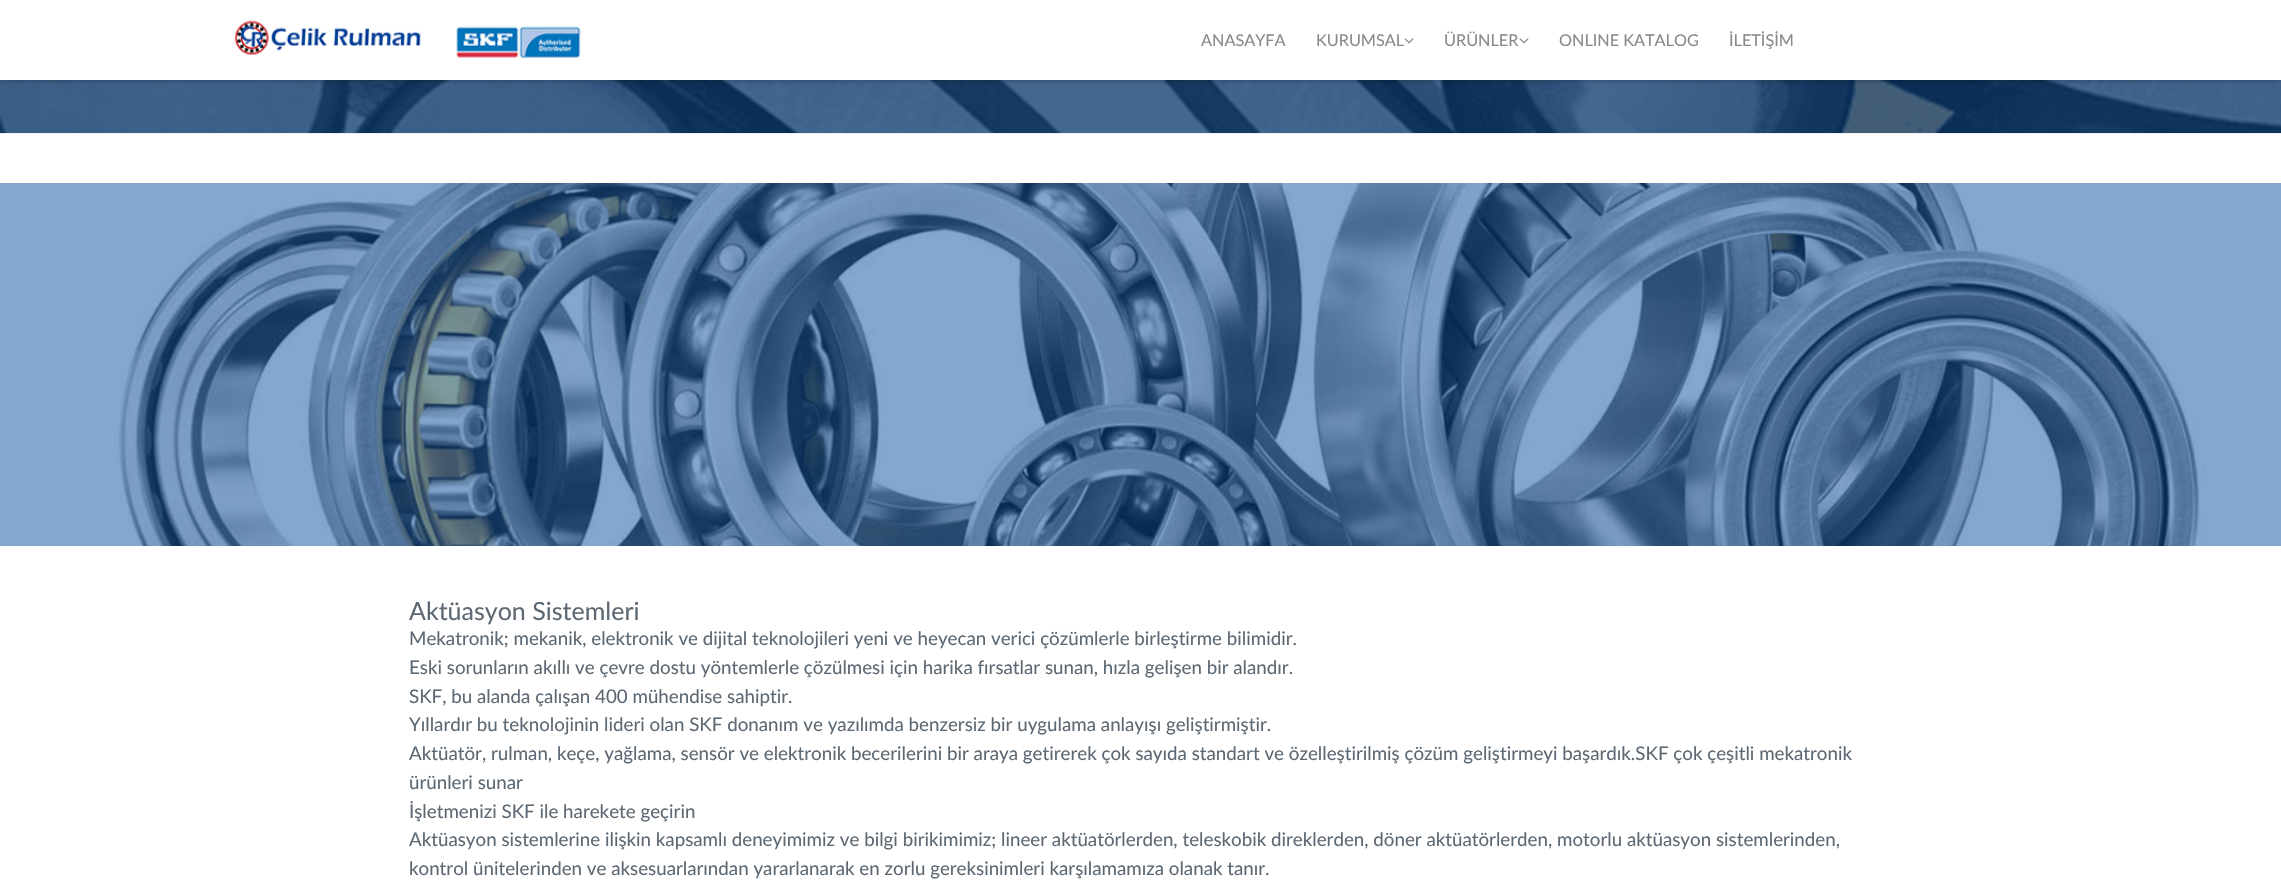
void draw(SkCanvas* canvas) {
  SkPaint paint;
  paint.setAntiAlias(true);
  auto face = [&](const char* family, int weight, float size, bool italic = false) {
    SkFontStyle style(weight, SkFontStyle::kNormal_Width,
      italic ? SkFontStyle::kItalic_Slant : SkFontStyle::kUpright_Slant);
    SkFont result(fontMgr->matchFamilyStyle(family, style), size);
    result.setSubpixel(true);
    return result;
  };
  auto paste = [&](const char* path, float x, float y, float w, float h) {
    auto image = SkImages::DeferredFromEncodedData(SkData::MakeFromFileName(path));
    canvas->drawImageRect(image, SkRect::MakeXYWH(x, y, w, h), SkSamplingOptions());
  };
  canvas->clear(0xffffffff);
  paste("img/3.png", 0, 80, 2281, 53);
  paint.setColor(0x40000000);
  paint.setMaskFilter(SkMaskFilter::MakeBlur(kNormal_SkBlurStyle, 2.5f));
  canvas->drawRect(SkRect::MakeXYWH(0, 1, 2281, 80), paint);
  paint.setMaskFilter(nullptr);
  paint.setColor(0xffffffff);
  canvas->drawRect(SkRect::MakeXYWH(0, 0, 2281, 80), paint);
  paste("img/1.png", 234, 20, 347, 39);
  paste("img/2.png", 1404, 38, 10, 6);
  paste("img/2.png", 1519, 38, 10, 6);
  paint.setColor(0xffeeeeee);
  canvas->drawRect(SkRect::MakeXYWH(0, 133, 2281, 1), paint);
  paste("img/4.png", 0, 183, 2281, 363);
  auto f0 = face("Lato", 400, 16.25f);
  paint.setColor(0xff8a8989);
  {
    const struct { const char* s; float x, y; } items[] = {
      {"ANASAYFA", 1201, 46},
      {"KURUMSAL", 1316, 46},
      {"ÜRÜNLER", 1444, 46},
      {"ONLINE KATALOG", 1559, 46},
      {"İLETİŞİM", 1729, 46},
    };
    for (auto [s, x, y] : items) {
      canvas->drawString(s, x, y, f0, paint);
    }
  }
  auto f1 = face("Lato", 400, 25);
  paint.setColor(0xff5c6873);
  canvas->drawString("Aktüasyon Sistemleri", 409, 620, f1, paint);
  auto f2 = face("Lato", 400, 18.75f);
  {
    const struct { const char* s; float x, y; } items[] = {
      {"Mekatronik; mekanik, elektronik ve dijital teknolojileri yeni ve heyecan verici çözümlerle birleştirme bilimidir.", 409, 645},
      {"Eski sorunların akıllı ve çevre dostu yöntemlerle çözülmesi için harika fırsatlar sunan, hızla gelişen bir alandır.", 409, 674},
      {"SKF, bu alanda çalışan 400 mühendise sahiptir.", 409, 703},
      {"Yıllardır bu teknolojinin lideri olan SKF donanım ve yazılımda benzersiz bir uygulama anlayışı geliştirmiştir.", 409, 731},
      {"Aktüatör, rulman, keçe, yağlama, sensör ve elektronik becerilerini bir araya getirerek çok sayıda standart ve özelleştirilmiş çözüm geliştirmeyi başardık.SKF çok çeşitli mekatronik", 409, 760},
      {"ürünleri sunar", 409, 789},
      {"İşletmenizi SKF ile harekete geçirin", 409, 818},
      {"Aktüasyon sistemlerine ilişkin kapsamlı deneyimimiz ve bilgi birikimimiz; lineer aktüatörlerden, teleskobik direklerden, döner aktüatörlerden, motorlu aktüasyon sistemlerinden,", 409, 846},
      {"kontrol ünitelerinden ve aksesuarlarından yararlanarak en zorlu gereksinimleri karşılamamıza olanak tanır.", 409, 875},
    };
    for (auto [s, x, y] : items) {
      canvas->drawString(s, x, y, f2, paint);
    }
  }
}
